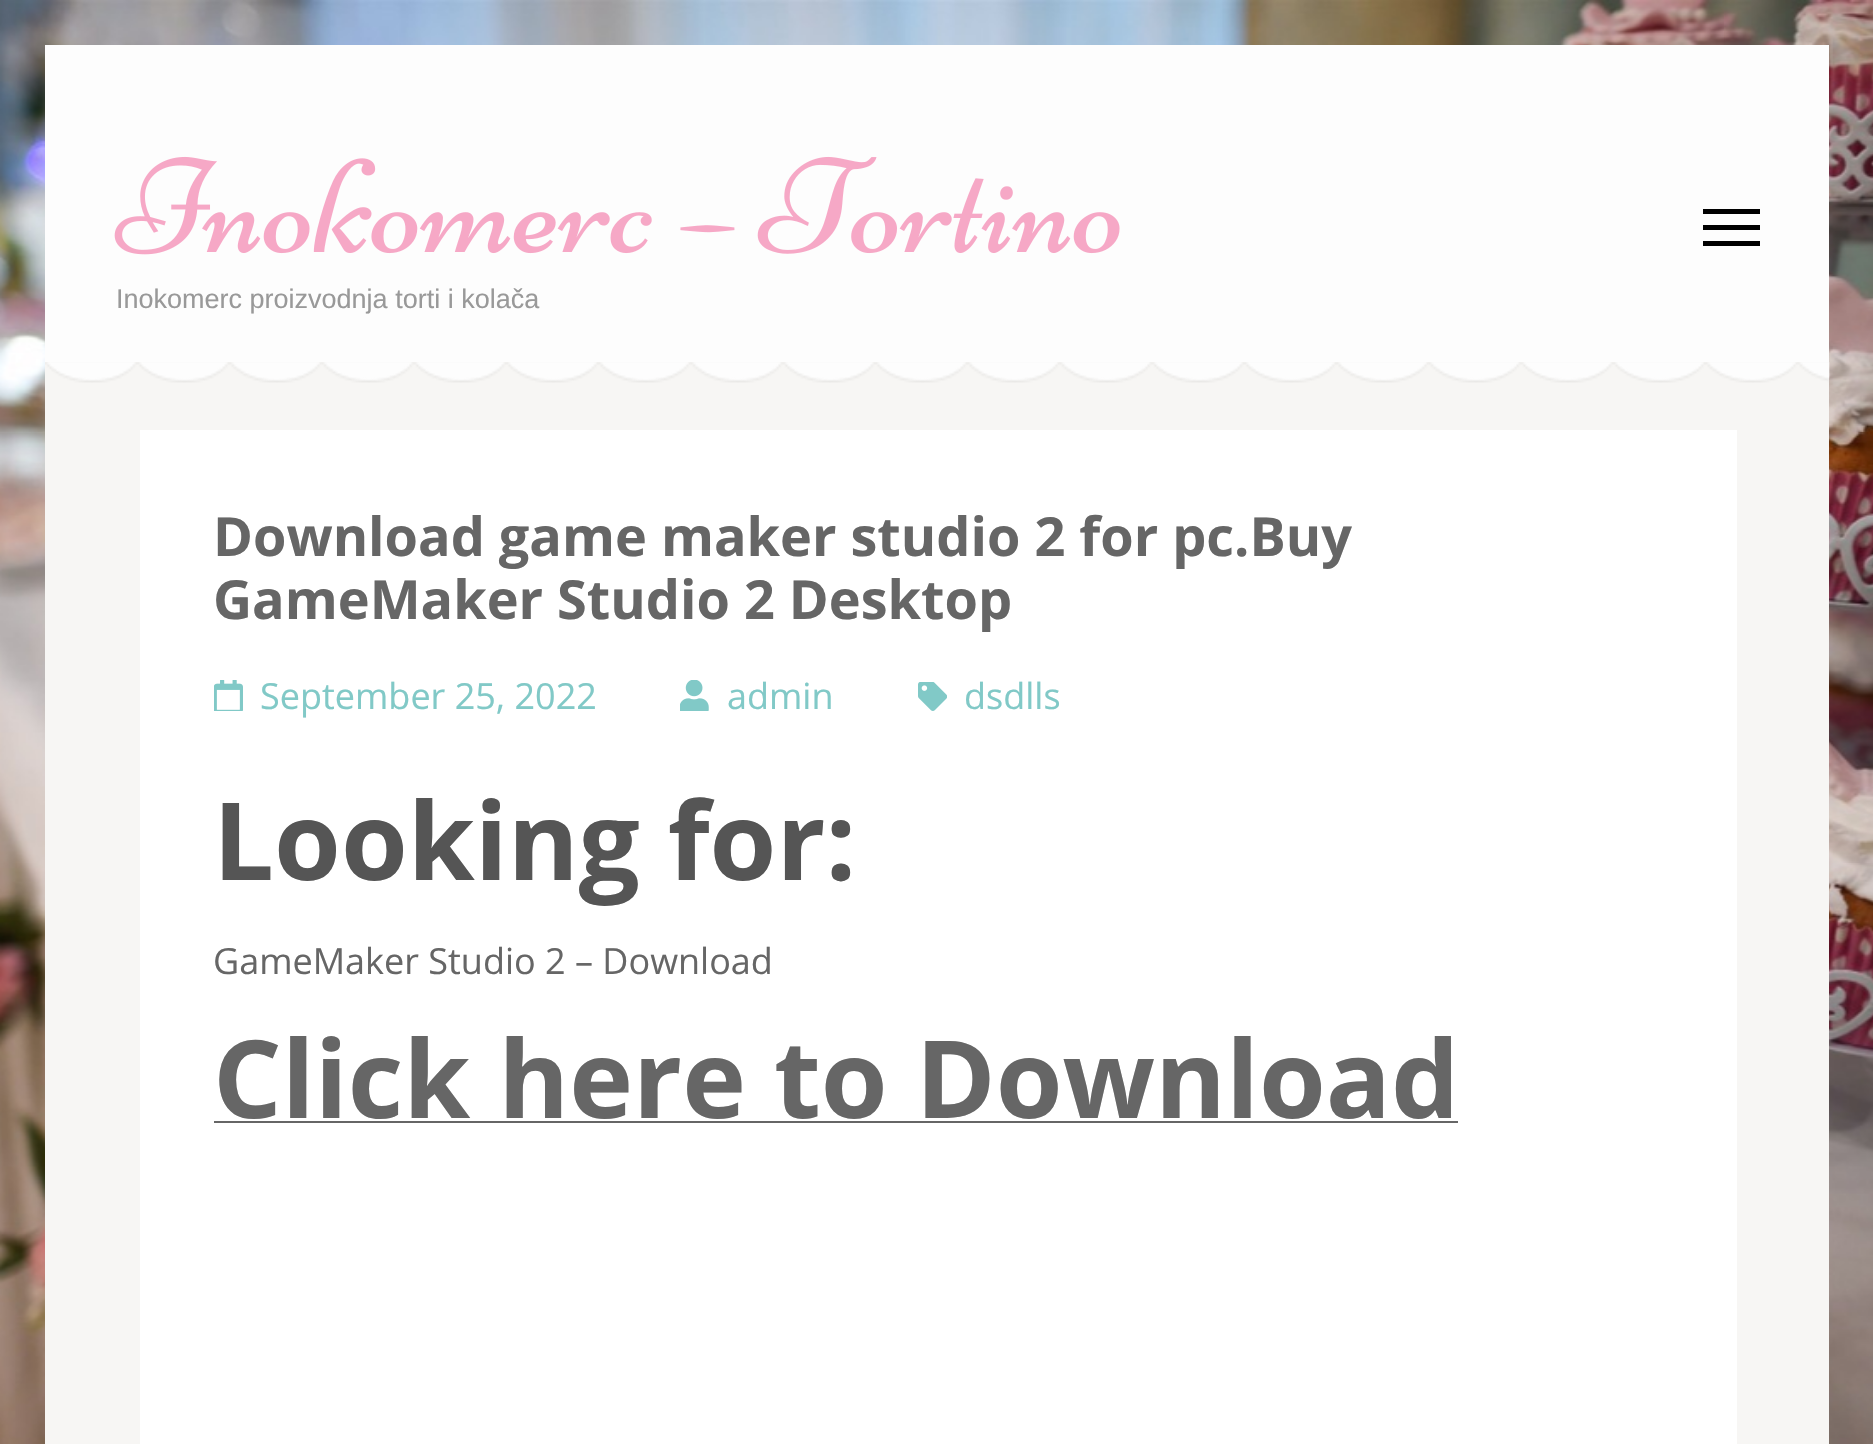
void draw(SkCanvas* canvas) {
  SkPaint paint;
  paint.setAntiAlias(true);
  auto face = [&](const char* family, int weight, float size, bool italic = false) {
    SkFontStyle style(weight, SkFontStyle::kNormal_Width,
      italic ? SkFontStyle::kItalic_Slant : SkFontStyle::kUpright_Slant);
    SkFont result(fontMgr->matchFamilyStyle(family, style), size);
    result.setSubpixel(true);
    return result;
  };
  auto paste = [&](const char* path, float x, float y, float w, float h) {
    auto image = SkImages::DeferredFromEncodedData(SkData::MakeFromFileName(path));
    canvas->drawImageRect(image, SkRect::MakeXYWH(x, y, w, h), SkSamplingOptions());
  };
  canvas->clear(0xffffffff);
  paste("img/1.png", 0, 0, 1873, 1444);
  {
    const struct { float x, y, w, h; SkColor color; } items[] = {
      {45, 362, 1784, 1082, 0xfff7f6f4},
      {45, 45, 1784, 317, 0xfffdfdfd},
      {1703, 209, 57, 5, 0xff000000},
      {1703, 225, 57, 5, 0xff000000},
      {1703, 241, 57, 5, 0xff000000},
    };
    for (auto [x, y, w, h, color] : items) {
      paint.setColor(color);
      canvas->drawRect(SkRect::MakeXYWH(x, y, w, h), paint);
    }
  }
  paste("img/2.png", 114, 156, 1006, 99);
  paste("img/3.png", 45, 362, 1785, 21);
  paint.setColor(0xffffffff);
  canvas->drawRect(SkRect::MakeXYWH(140, 430, 1597, 1014), paint);
  paste("img/4.png", 214, 680, 29, 31);
  paste("img/5.png", 680, 680, 29, 31);
  paste("img/6.png", 918, 682, 29, 29);
  paint.setColor(0xff666666);
  canvas->drawRect(SkRect::MakeXYWH(214, 1121, 1244, 2), paint);
  auto f0 = face("Liberation Sans", 400, 27);
  paint.setColor(0xff999999);
  canvas->drawString("Inokomerc proizvodnja torti i kolača", 116, 308, f0, paint);
  auto f1 = face("Open Sans", 700, 54);
  paint.setColor(0xff666666);
  canvas->drawString("Download game maker studio 2 for pc.Buy", 213, 556, f1, paint);
  canvas->drawString("GameMaker Studio 2 Desktop", 213, 619, f1, paint);
  auto f2 = face("Open Sans", 400, 36);
  paint.setColor(0xff81c9c7);
  {
    const struct { const char* s; float x, y; } items[] = {
      {"September 25, 2022", 260, 709},
      {"admin", 727, 709},
      {"dsdlls", 964, 709},
    };
    for (auto [s, x, y] : items) {
      canvas->drawString(s, x, y, f2, paint);
    }
  }
  auto f3 = face("Open Sans", 700, 108);
  paint.setColor(0xff555555);
  canvas->drawString("Looking for:", 213, 880, f3, paint);
  paint.setColor(0xff666666);
  canvas->drawString("GameMaker Studio 2 – Download", 213, 974, f2, paint);
  canvas->drawString("Click here to Download", 213, 1118, f3, paint);
}
